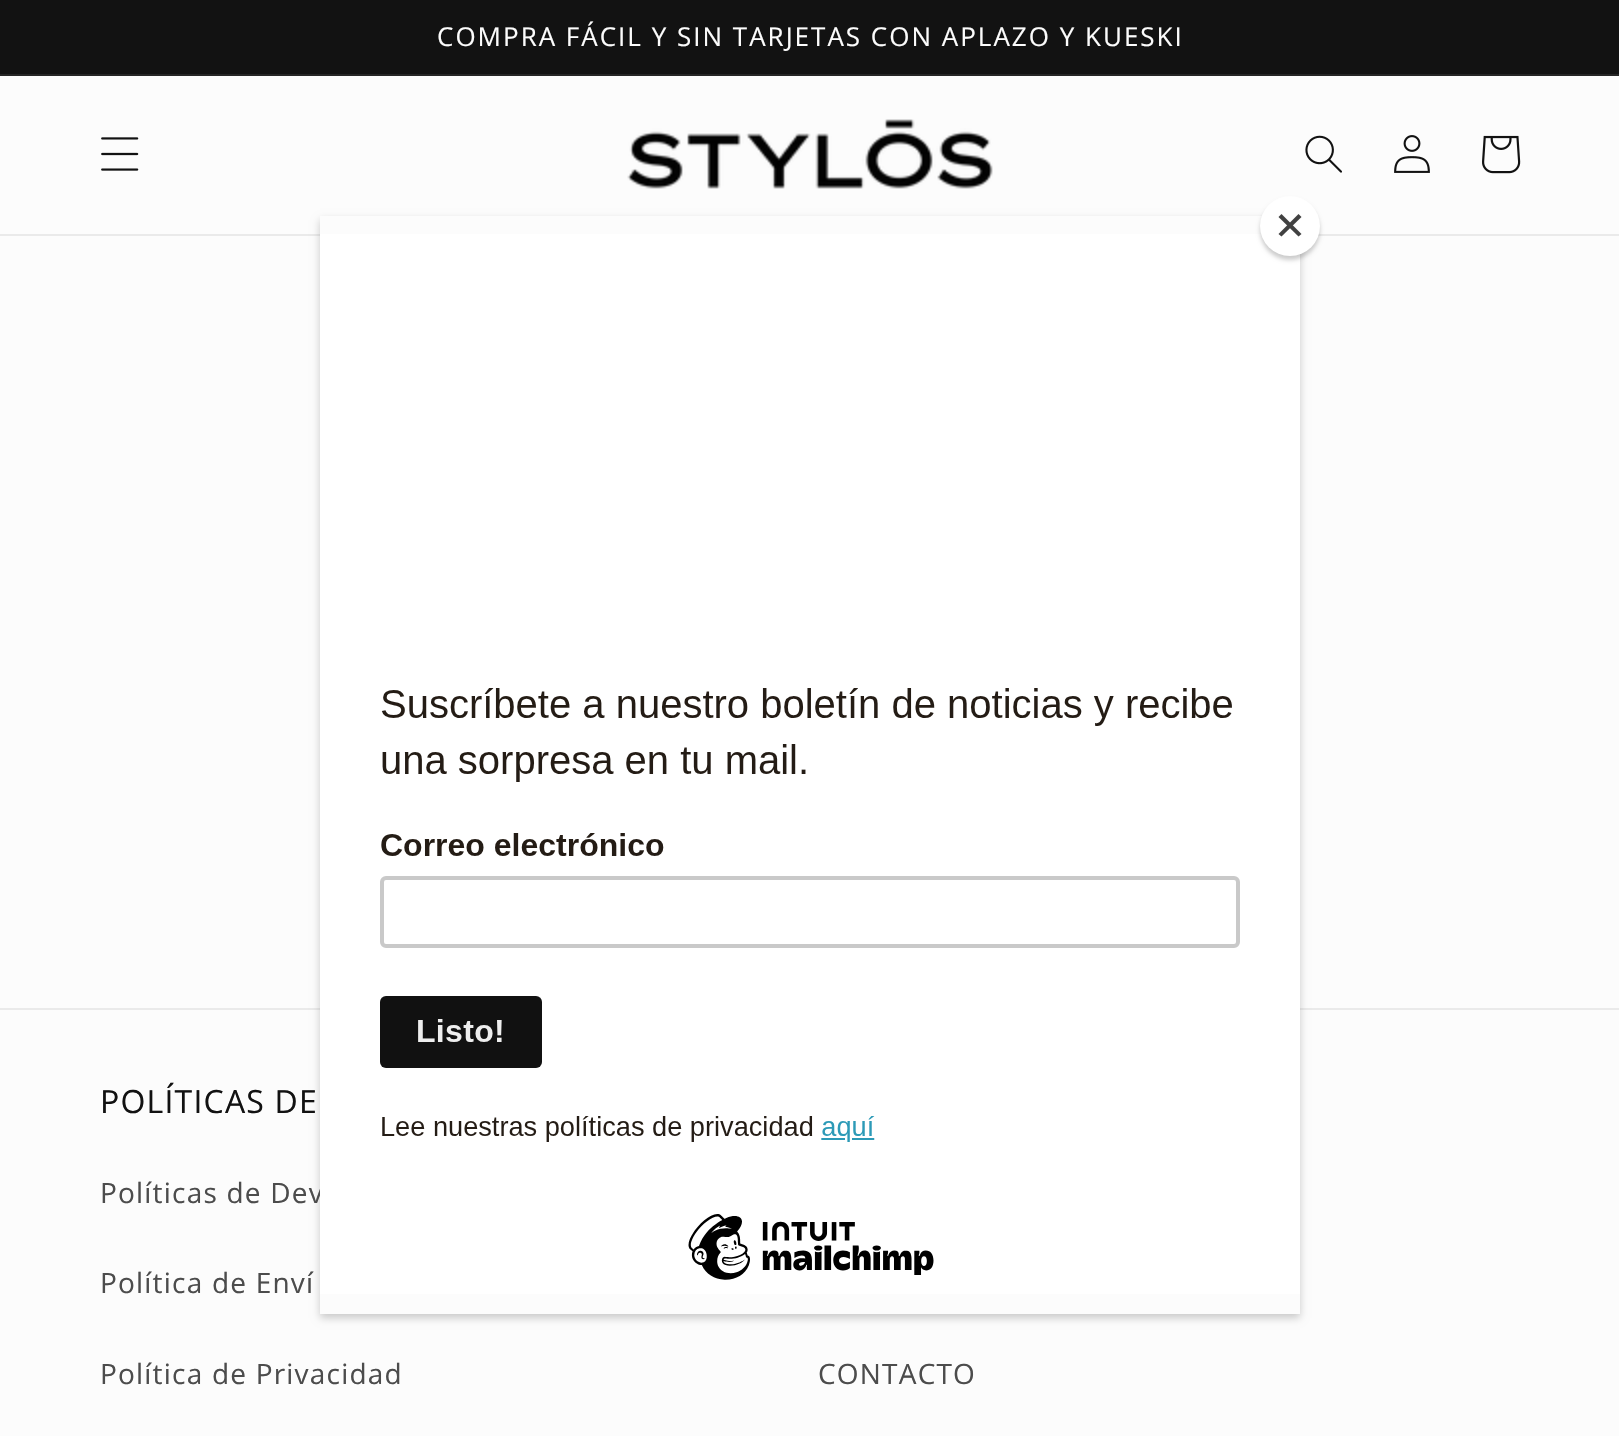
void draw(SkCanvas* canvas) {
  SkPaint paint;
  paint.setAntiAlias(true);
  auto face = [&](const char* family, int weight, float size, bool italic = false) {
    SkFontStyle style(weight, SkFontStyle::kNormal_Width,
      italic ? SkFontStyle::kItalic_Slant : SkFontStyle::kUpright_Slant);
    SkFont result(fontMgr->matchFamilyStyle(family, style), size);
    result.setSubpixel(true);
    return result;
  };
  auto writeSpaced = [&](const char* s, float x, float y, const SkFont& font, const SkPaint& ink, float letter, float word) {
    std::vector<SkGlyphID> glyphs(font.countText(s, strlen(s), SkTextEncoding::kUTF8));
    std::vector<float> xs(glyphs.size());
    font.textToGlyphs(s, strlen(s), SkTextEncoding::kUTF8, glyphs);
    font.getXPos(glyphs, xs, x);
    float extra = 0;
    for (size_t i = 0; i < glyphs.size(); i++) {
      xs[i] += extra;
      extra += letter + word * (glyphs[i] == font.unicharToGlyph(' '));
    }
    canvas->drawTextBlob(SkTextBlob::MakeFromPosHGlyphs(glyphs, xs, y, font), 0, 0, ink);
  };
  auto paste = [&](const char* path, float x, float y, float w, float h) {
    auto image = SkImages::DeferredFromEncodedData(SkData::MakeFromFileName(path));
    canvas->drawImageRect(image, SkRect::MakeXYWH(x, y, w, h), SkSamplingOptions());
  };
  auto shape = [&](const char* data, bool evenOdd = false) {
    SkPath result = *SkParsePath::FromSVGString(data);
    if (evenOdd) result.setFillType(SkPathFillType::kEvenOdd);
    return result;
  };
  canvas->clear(0xfffcfcfc);
  {
    const struct { float x, y, w, h; SkColor color; } items[] = {
      {0, 0, 1619, 74, 0xff121212},
      {0, 74, 1619, 2, 0xff252525},
      {0, 234, 1619, 2, 0xffeaeaea},
    };
    for (auto [x, y, w, h, color] : items) {
      paint.setColor(color);
      canvas->drawRect(SkRect::MakeXYWH(x, y, w, h), paint);
    }
  }
  paste("img/1.png", 101, 137, 38, 34);
  paste("img/2.png", 627, 119, 366, 70);
  paste("img/3.png", 1305, 135, 37, 38);
  paste("img/4.png", 1394, 135, 36, 38);
  paste("img/5.png", 1482, 135, 39, 39);
  canvas->drawRect(SkRect::MakeXYWH(0, 1008, 1619, 2), paint);
  canvas->save();
  canvas->clipPath(shape("M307 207H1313V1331H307ZM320 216H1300V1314H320Z", true), true);
  paint.setColor(0x33000000);
  paint.setMaskFilter(SkMaskFilter::MakeBlur(kNormal_SkBlurStyle, 4));
  canvas->drawRect(SkRect::MakeXYWH(320, 220, 980, 1098), paint);
  paint.setMaskFilter(nullptr);
  canvas->restore();
  auto f0 = face("Open Sans", 400, 26);
  paint.setColor(0xfffcfcfc);
  writeSpaced("COMPRA FÁCIL Y SIN TARJETAS CON APLAZO Y KUESKI", 437, 46, f0, paint, 2, 0);
  auto f1 = face("Open Sans", 400, 32);
  paint.setColor(0xff121212);
  writeSpaced("POLÍTICAS DE", 100, 1113, f1, paint, 1.2f, 0);
  auto f2 = face("Open Sans", 400, 28);
  paint.setColor(0xff4c4c4c);
  writeSpaced("Políticas de Dev", 100, 1203, f2, paint, 1.2f, 0);
  paste("img/6.png", 320, 234, 980, 1060);
  paint.setColor(0x33000000);
  paint.setMaskFilter(SkMaskFilter::MakeBlur(kNormal_SkBlurStyle, 2));
  canvas->drawRoundRect(SkRect::MakeXYWH(1260, 200, 60, 60), 30, 30, paint);
  paint.setMaskFilter(nullptr);
  paint.setColor(0xffffffff);
  canvas->drawCircle(1290, 226, 30, paint);
  paint.setColor(0xff414141);
  canvas->drawPath(shape("M1298.5 214L1301.5 217L1281.5 236.5L1278.5 234Z"), paint);
  canvas->drawPath(shape("M1278.5 217L1281.5 214L1301.5 234L1298.5 236.5Z"), paint);
  paint.setColor(0xff4c4c4c);
  {
    const struct { const char* s; float x, y; } items[] = {
      {"Política de Enví", 100, 1293},
      {"Política de Privacidad", 100, 1384},
      {"CONTACTO", 818, 1384},
    };
    for (auto [s, x, y] : items) {
      writeSpaced(s, x, y, f2, paint, 1.2f, 0);
    }
  }
}
